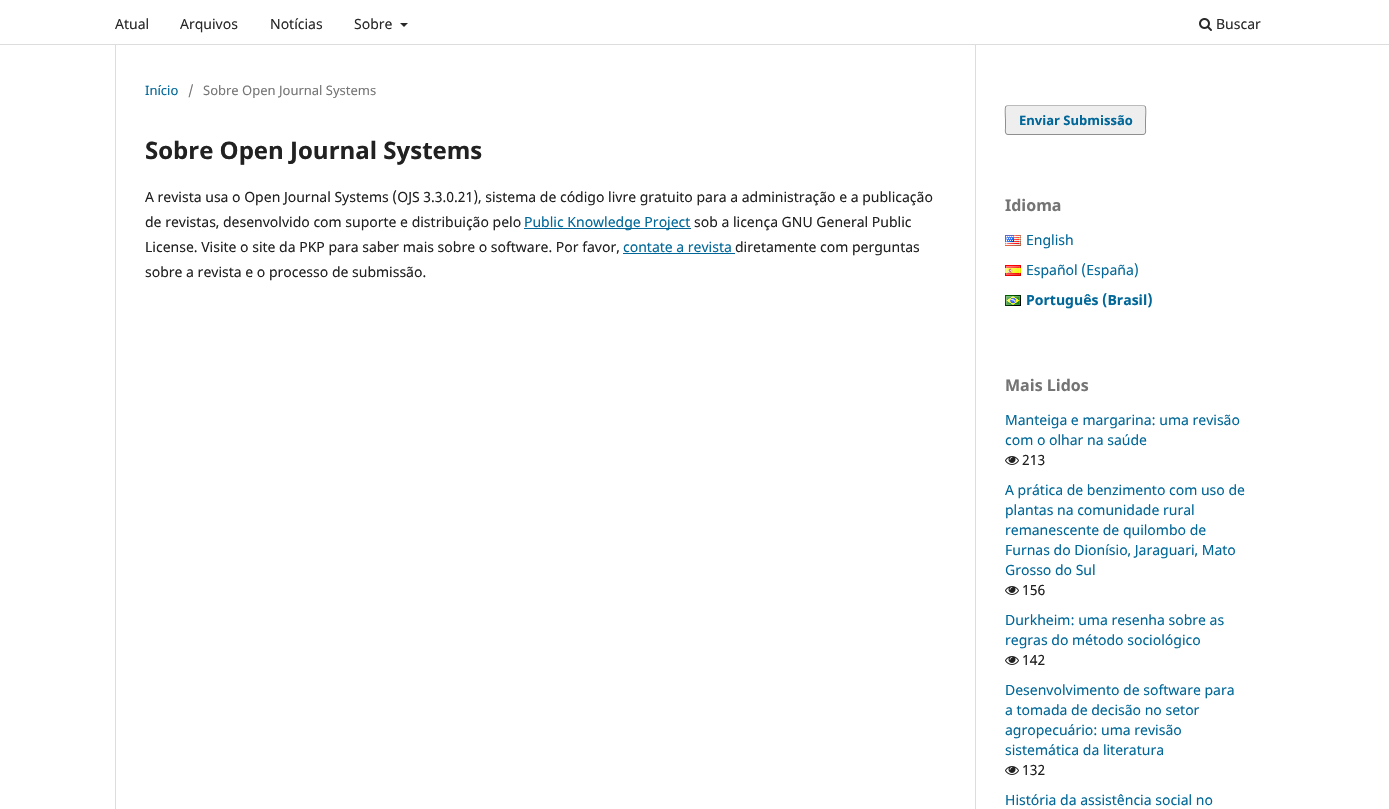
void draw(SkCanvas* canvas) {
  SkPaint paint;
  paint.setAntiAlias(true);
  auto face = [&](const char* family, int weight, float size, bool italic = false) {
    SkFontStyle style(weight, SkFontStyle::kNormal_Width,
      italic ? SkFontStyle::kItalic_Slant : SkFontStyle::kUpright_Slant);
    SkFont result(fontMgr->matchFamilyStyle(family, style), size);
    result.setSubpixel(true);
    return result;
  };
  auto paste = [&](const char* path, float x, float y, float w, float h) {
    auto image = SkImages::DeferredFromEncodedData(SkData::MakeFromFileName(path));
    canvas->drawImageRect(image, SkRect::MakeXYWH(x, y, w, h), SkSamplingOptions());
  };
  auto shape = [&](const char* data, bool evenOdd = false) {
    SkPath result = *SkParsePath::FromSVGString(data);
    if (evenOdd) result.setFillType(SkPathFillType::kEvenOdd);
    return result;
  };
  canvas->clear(0xffffffff);
  paint.setColor(0xffdddddd);
  canvas->drawRect(SkRect::MakeXYWH(0, 44, 1389, 1), paint);
  paint.setColor(0xff292929);
  canvas->drawPath(shape("M400 23H408L404 27Z"), paint);
  paste("img/1.png", 1199, 18, 13, 13);
  {
    const struct { float x, y, w, h; SkColor color; } items[] = {
      {115, 45, 1, 764, 0xffdddddd},
      {524, 228, 167, 1, 0xff006798},
      {623, 253, 112, 1, 0xff006798},
      {975, 45, 1, 764, 0xffdddddd},
    };
    for (auto [x, y, w, h, color] : items) {
      paint.setColor(color);
      canvas->drawRect(SkRect::MakeXYWH(x, y, w, h), paint);
    }
  }
  paint.setColor(0xffeeeeee);
  canvas->drawRoundRect(SkRect::MakeXYWH(1005, 105, 141, 30), 3, 3, paint);
  paint.setStroke(true);
  paint.setStrokeWidth(1);
  paint.setColor(0xffbbbbbb);
  canvas->drawPath(shape("M1006 106L1008 105.5H1143L1145 106"), paint);
  paint.setColor(0x66000000);
  canvas->drawPath(shape("M1145 106C1146.5 108 1145.5 117.5 1145.5 120V128C1145.5 130 1146.5 134.5 1143 134.5H1008C1004.5 134.5 1005.5 130 1005.5 128V120C1005.5 117.5 1004.5 108 1006 106"), paint);
  paste("img/2.png", 1005, 235, 16, 11);
  paste("img/3.png", 1005, 265, 16, 11);
  paste("img/4.png", 1005, 295, 16, 11);
  paste("img/5.png", 1005, 456, 14, 9);
  paste("img/5.png", 1005, 586, 14, 9);
  paste("img/5.png", 1005, 656, 14, 9);
  paste("img/5.png", 1005, 766, 14, 9);
  auto f0 = face("Noto Sans", 400, 14);
  paint.setStroke(false);
  paint.setColor(0xff292929);
  {
    const struct { const char* s; float x, y; } items[] = {
      {"Atual", 115, 29},
      {"Arquivos", 180, 29},
      {"Notícias", 270, 29},
      {"Sobre", 354, 29},
      {"Buscar", 1216, 29},
    };
    for (auto [s, x, y] : items) {
      canvas->drawString(s, x, y, f0, paint);
    }
  }
  auto f1 = face("Noto Sans", 400, 13);
  paint.setColor(0xff006798);
  canvas->drawString("Início", 145, 95, f1, paint);
  paint.setColor(0xff757575);
  canvas->drawString("/", 188, 95, f1, paint);
  canvas->drawString("Sobre Open Journal Systems", 203, 95, f1, paint);
  auto f2 = face("Noto Sans", 700, 24);
  paint.setColor(0xff212121);
  canvas->drawString("Sobre Open Journal Systems", 145, 159, f2, paint);
  canvas->drawString("A revista usa o Open Journal Systems (OJS 3.3.0.21), sistema de código livre gratuito para a administração e a publicação", 145, 202, f0, paint);
  canvas->drawString("de revistas, desenvolvido com suporte e distribuição pelo", 145, 227, f0, paint);
  paint.setColor(0xff006798);
  canvas->drawString("Public Knowledge Project", 524, 227, f0, paint);
  paint.setColor(0xff212121);
  canvas->drawString("sob a licença GNU General Public", 694, 227, f0, paint);
  canvas->drawString("License. Visite o site da PKP para saber mais sobre o software. Por favor,", 145, 252, f0, paint);
  paint.setColor(0xff006798);
  canvas->drawString("contate a revista", 623, 252, f0, paint);
  paint.setColor(0xff212121);
  canvas->drawString("diretamente com perguntas", 735, 252, f0, paint);
  canvas->drawString("sobre a revista e o processo de submissão.", 145, 277, f0, paint);
  auto f3 = face("Noto Sans", 700, 13);
  paint.setColor(0xff006798);
  canvas->drawString("Enviar Submissão", 1019, 125, f3, paint);
  auto f4 = face("Noto Sans", 700, 16);
  paint.setColor(0xff757575);
  canvas->drawString("Idioma", 1005, 211, f4, paint);
  paint.setColor(0xff006798);
  canvas->drawString("English", 1026, 245, f0, paint);
  canvas->drawString("Español (España)", 1026, 275, f0, paint);
  auto f5 = face("Noto Sans", 700, 14);
  canvas->drawString("Português (Brasil)", 1026, 305, f5, paint);
  paint.setColor(0xff757575);
  canvas->drawString("Mais Lidos", 1005, 391, f4, paint);
  paint.setColor(0xff006798);
  canvas->drawString("Manteiga e margarina: uma revisão", 1005, 425, f0, paint);
  canvas->drawString("com o olhar na saúde", 1005, 445, f0, paint);
  paint.setColor(0xff212121);
  canvas->drawString("213", 1022, 465, f0, paint);
  paint.setColor(0xff006798);
  {
    const struct { const char* s; float x, y; } items[] = {
      {"A prática de benzimento com uso de", 1005, 495},
      {"plantas na comunidade rural", 1005, 515},
      {"remanescente de quilombo de", 1005, 535},
      {"Furnas do Dionísio, Jaraguari, Mato", 1005, 555},
      {"Grosso do Sul", 1005, 575},
    };
    for (auto [s, x, y] : items) {
      canvas->drawString(s, x, y, f0, paint);
    }
  }
  paint.setColor(0xff212121);
  canvas->drawString("156", 1022, 595, f0, paint);
  paint.setColor(0xff006798);
  canvas->drawString("Durkheim: uma resenha sobre as", 1005, 625, f0, paint);
  canvas->drawString("regras do método sociológico", 1005, 645, f0, paint);
  paint.setColor(0xff212121);
  canvas->drawString("142", 1022, 665, f0, paint);
  paint.setColor(0xff006798);
  {
    const struct { const char* s; float x, y; } items[] = {
      {"Desenvolvimento de software para", 1005, 695},
      {"a tomada de decisão no setor", 1005, 715},
      {"agropecuário: uma revisão", 1005, 735},
      {"sistemática da literatura", 1005, 755},
    };
    for (auto [s, x, y] : items) {
      canvas->drawString(s, x, y, f0, paint);
    }
  }
  paint.setColor(0xff212121);
  canvas->drawString("132", 1022, 775, f0, paint);
  paint.setColor(0xff006798);
  canvas->drawString("História da assistência social no", 1005, 805, f0, paint);
}
